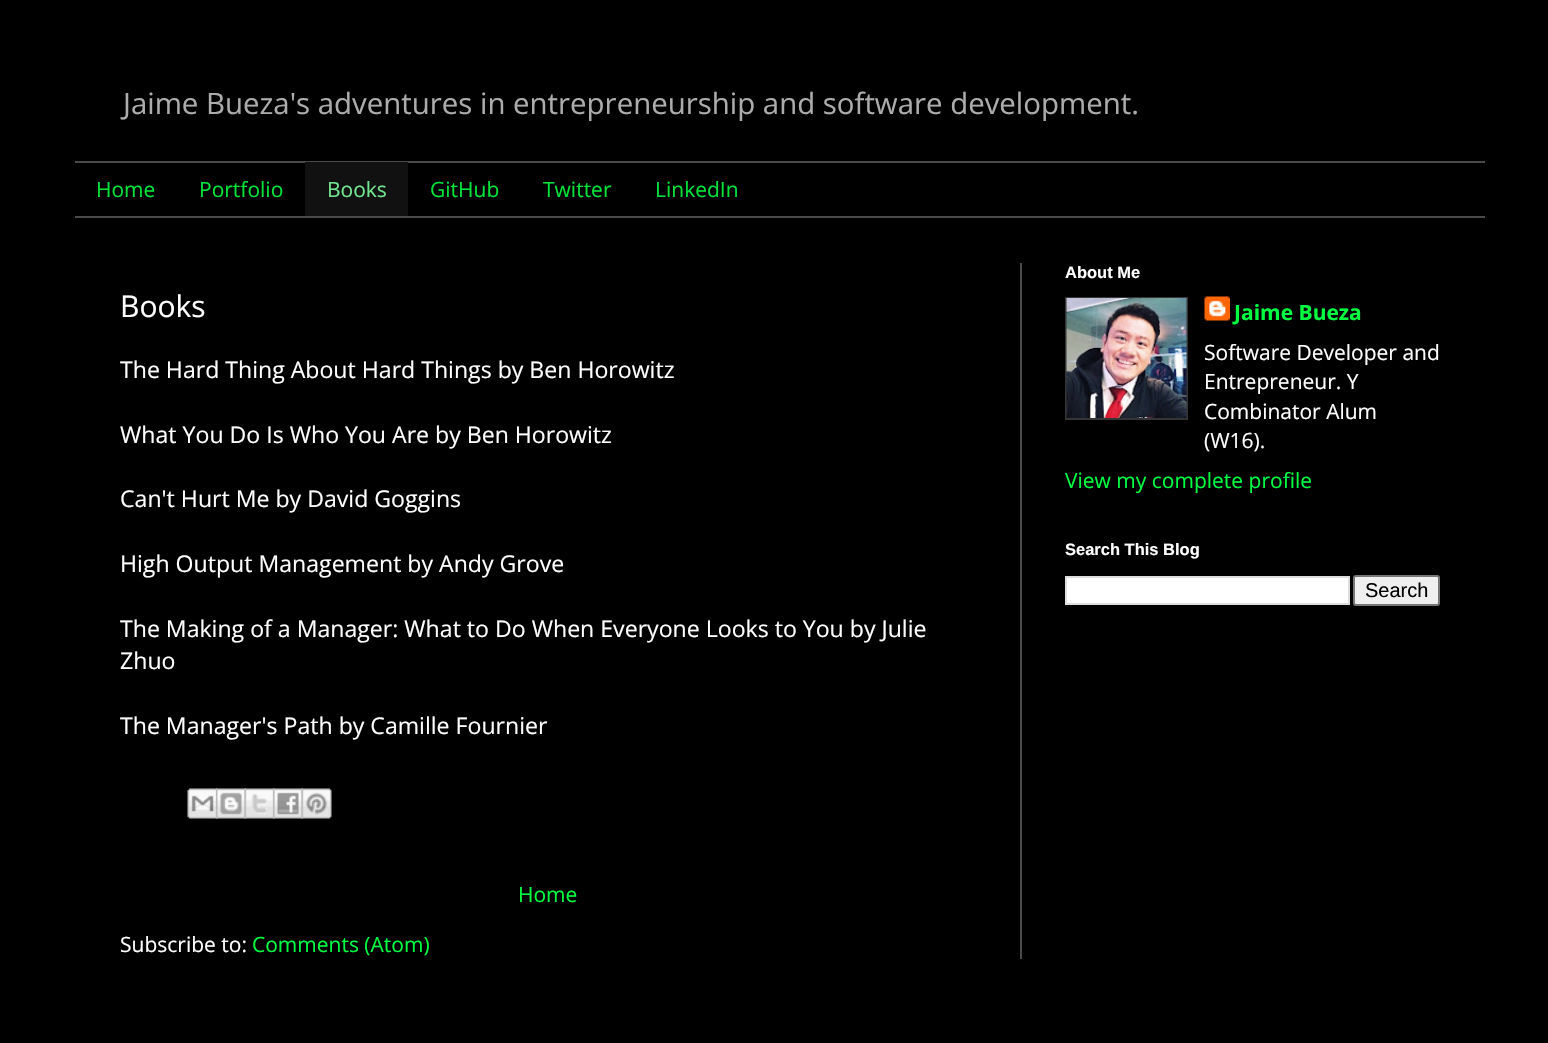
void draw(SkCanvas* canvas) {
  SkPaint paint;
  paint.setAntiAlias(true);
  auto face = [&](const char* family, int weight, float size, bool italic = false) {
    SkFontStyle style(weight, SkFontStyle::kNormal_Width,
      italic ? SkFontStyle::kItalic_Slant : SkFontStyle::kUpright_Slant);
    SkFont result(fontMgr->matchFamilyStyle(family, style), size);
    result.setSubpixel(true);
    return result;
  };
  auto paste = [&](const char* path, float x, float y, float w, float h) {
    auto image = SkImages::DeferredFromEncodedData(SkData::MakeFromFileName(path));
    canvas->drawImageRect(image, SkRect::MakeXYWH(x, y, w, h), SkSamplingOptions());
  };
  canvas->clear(0xff000000);
  {
    const struct { float x, y, w, h; SkColor color; } items[] = {
      {75, 161, 1410, 2, 0xff4a4a4a},
      {75, 216, 1410, 2, 0xff4a4a4a},
      {305, 162, 103, 54, 0xff111111},
      {1020, 263, 2, 696, 0xff4a4a4a},
    };
    for (auto [x, y, w, h, color] : items) {
      paint.setColor(color);
      canvas->drawRect(SkRect::MakeXYWH(x, y, w, h), paint);
    }
  }
  paste("img/1.png", 187, 788, 31, 31);
  paste("img/2.png", 216, 788, 30, 31);
  paste("img/3.png", 244, 788, 31, 31);
  paste("img/4.png", 273, 788, 30, 31);
  paste("img/5.png", 301, 788, 31, 31);
  paint.setColor(0xff353535);
  canvas->drawRect(SkRect::MakeXYWH(1065, 297, 123, 123), paint);
  paste("img/6.png", 1066, 298, 121, 120);
  paste("img/7.png", 1204, 296, 26, 25);
  paint.setColor(0xffffffff);
  canvas->drawRect(SkRect::MakeXYWH(1066, 577, 283, 27), paint);
  paint.setStroke(true);
  paint.setStrokeWidth(2);
  paint.setColor(0xffdddddd);
  canvas->drawRect(SkRect::MakeXYWH(1066, 577, 283, 27), paint);
  paint.setStroke(false);
  paint.setColor(0xffefefef);
  canvas->drawRoundRect(SkRect::MakeXYWH(1354, 576, 85, 29), 2, 2, paint);
  paint.setStroke(true);
  paint.setColor(0xff767676);
  canvas->drawRoundRect(SkRect::MakeXYWH(1354, 576, 85, 29), 2, 2, paint);
  auto f0 = face("Open Sans", 400, 29.4f);
  paint.setStroke(false);
  paint.setColor(0xffacacac);
  canvas->drawString("Jaime Bueza's adventures in entrepreneurship and software development.", 123, 114, f0, paint);
  auto f1 = face("Open Sans", 400, 21);
  paint.setColor(0xff00e43a);
  canvas->drawString("Home", 96, 197, f1, paint);
  canvas->drawString("Portfolio", 199, 197, f1, paint);
  paint.setColor(0xff72e48f);
  canvas->drawString("Books", 327, 197, f1, paint);
  paint.setColor(0xff00e43a);
  {
    const struct { const char* s; float x, y; } items[] = {
      {"GitHub", 430, 197},
      {"Twitter", 543, 197},
      {"LinkedIn", 655, 197},
    };
    for (auto [s, x, y] : items) {
      canvas->drawString(s, x, y, f1, paint);
    }
  }
  auto f2 = face("Open Sans", 400, 30);
  paint.setColor(0xffffffff);
  canvas->drawString("Books", 120, 317, f2, paint);
  auto f3 = face("Open Sans", 400, 23.1f);
  {
    const struct { const char* s; float x, y; } items[] = {
      {"The Hard Thing About Hard Things by Ben Horowitz", 120, 378},
      {"What You Do Is Who You Are by Ben Horowitz", 120, 443},
      {"Can't Hurt Me by David Goggins", 120, 507},
      {"High Output Management by Andy Grove", 120, 572},
      {"The Making of a Manager: What to Do When Everyone Looks to You by Julie", 120, 637},
      {"Zhuo", 120, 669},
      {"The Manager's Path by Camille Fournier", 120, 734},
    };
    for (auto [s, x, y] : items) {
      canvas->drawString(s, x, y, f3, paint);
    }
  }
  paint.setColor(0xff00ff41);
  canvas->drawString("Home", 518, 902, f1, paint);
  paint.setColor(0xffffffff);
  canvas->drawString("Subscribe to:", 120, 952, f1, paint);
  paint.setColor(0xff00ff41);
  canvas->drawString("Comments (Atom)", 252, 952, f1, paint);
  auto f4 = face("Liberation Sans", 700, 16.5f);
  paint.setColor(0xffffffff);
  canvas->drawString("About Me", 1065, 278, f4, paint);
  auto f5 = face("Open Sans", 700, 21);
  paint.setColor(0xff00ff41);
  canvas->drawString("Jaime Bueza", 1234, 320, f5, paint);
  paint.setColor(0xffffffff);
  {
    const struct { const char* s; float x, y; } items[] = {
      {"Software Developer and", 1204, 360},
      {"Entrepreneur. Y", 1204, 389},
      {"Combinator Alum", 1204, 419},
      {"(W16).", 1204, 448},
    };
    for (auto [s, x, y] : items) {
      canvas->drawString(s, x, y, f1, paint);
    }
  }
  paint.setColor(0xff00ff41);
  canvas->drawString("View my complete profile", 1065, 488, f1, paint);
  paint.setColor(0xffffffff);
  canvas->drawString("Search This Blog", 1065, 555, f4, paint);
  auto f6 = face("Liberation Sans", 400, 20);
  paint.setColor(0xff000000);
  canvas->drawString("Search", 1365, 597, f6, paint);
}
